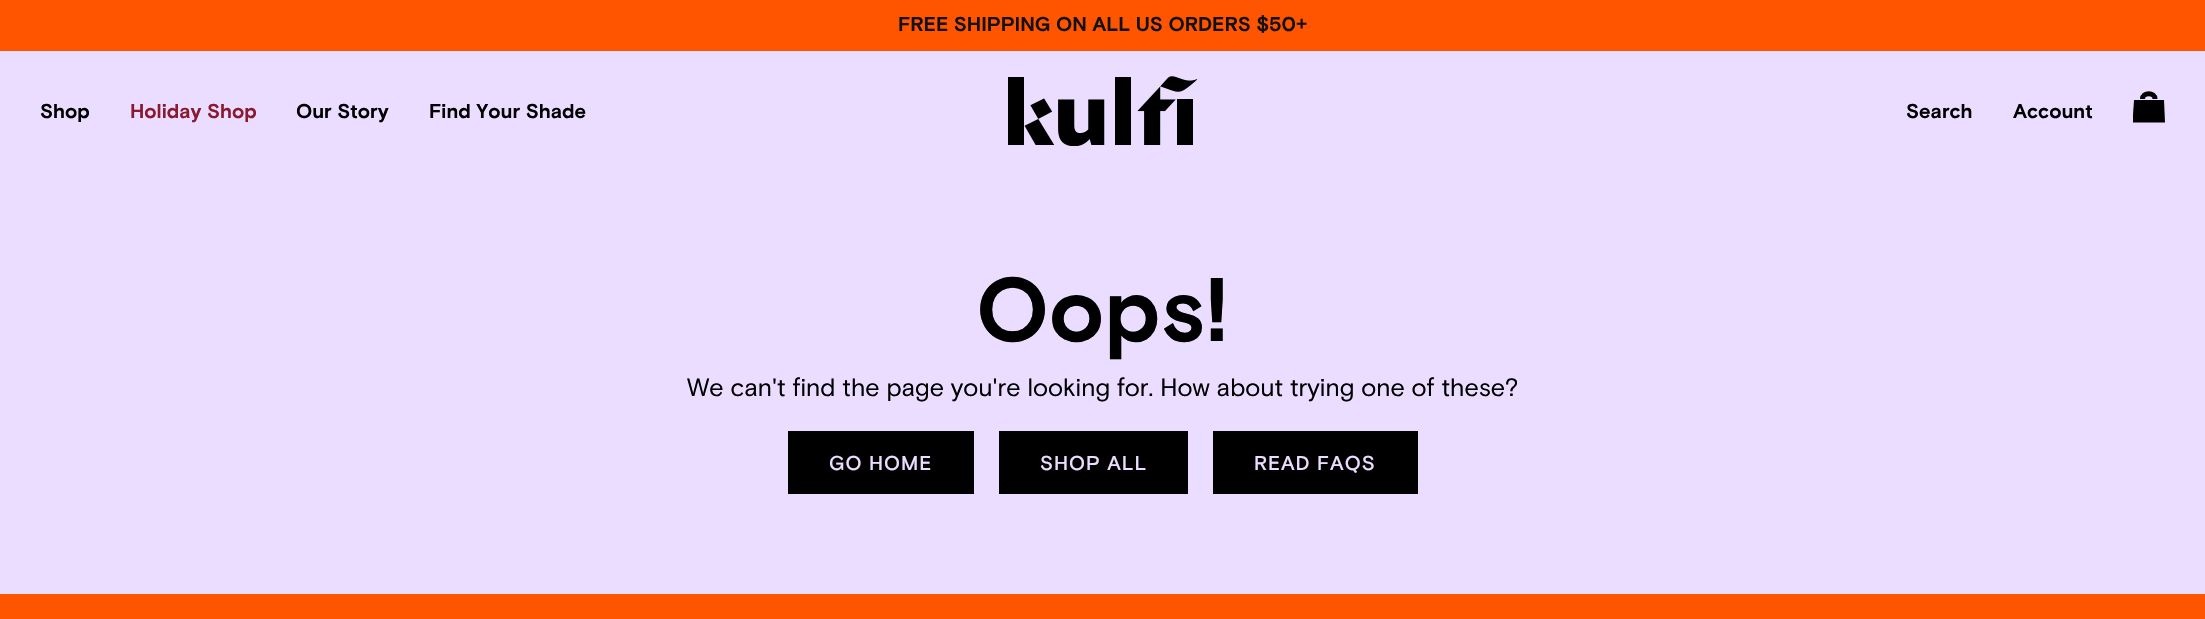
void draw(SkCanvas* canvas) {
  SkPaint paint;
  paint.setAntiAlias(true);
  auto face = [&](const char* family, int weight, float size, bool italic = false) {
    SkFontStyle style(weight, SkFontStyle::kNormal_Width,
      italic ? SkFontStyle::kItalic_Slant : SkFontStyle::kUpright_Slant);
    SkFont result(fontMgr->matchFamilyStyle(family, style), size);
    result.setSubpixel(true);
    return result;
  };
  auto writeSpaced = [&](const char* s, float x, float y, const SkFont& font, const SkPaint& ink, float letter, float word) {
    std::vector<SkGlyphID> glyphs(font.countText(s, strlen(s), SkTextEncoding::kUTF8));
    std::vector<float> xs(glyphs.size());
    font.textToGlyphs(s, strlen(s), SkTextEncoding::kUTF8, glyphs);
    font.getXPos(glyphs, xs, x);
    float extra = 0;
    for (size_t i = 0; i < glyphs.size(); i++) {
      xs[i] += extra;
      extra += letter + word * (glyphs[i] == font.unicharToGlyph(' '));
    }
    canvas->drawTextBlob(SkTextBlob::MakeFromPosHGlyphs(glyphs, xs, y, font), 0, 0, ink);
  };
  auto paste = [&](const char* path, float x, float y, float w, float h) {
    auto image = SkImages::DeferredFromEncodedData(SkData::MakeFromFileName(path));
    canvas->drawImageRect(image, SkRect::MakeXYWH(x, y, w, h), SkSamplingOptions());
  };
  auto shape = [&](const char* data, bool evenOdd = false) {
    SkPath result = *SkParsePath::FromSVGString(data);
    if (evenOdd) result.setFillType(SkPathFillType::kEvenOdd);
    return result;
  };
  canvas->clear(0xffebddff);
  paint.setColor(0xffff5400);
  canvas->drawRect(SkRect::MakeXYWH(0, 0, 2205, 51), paint);
  paste("img/1.png", 1008, 76, 190, 70);
  canvas->save();
  canvas->clipRect(SkRect::MakeXYWH(2133, 91, 32, 33));
  paint.setColor(0xff000000);
  canvas->drawPath(shape("M2134 100H2164L2165 122.5H2132.5Z"), paint);
  canvas->restore();
  paint.setStroke(true);
  paint.setStrokeWidth(5);
  canvas->drawPath(shape("M2142.5 99C2142.5 92 2155 92 2155 99"), paint);
  paint.setStroke(false);
  {
    const struct { float x, y, w, h; SkColor color; } items[] = {
      {788, 431, 186, 63, 0xff000000},
      {999, 431, 189, 63, 0xff000000},
      {1213, 431, 205, 63, 0xff000000},
      {0, 594, 2205, 25, 0xffff5400},
    };
    for (auto [x, y, w, h, color] : items) {
      paint.setColor(color);
      canvas->drawRect(SkRect::MakeXYWH(x, y, w, h), paint);
    }
  }
  auto f0 = face("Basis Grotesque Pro", 700, 20);
  paint.setColor(0xff121212);
  canvas->drawString("FREE SHIPPING ON ALL US ORDERS $50+", 898, 31, f0, paint);
  paint.setColor(0xff000000);
  canvas->drawString("Shop", 40, 118, f0, paint);
  paint.setColor(0xff8a1a30);
  canvas->drawString("Holiday Shop", 130, 118, f0, paint);
  paint.setColor(0xff000000);
  {
    const struct { const char* s; float x, y; } items[] = {
      {"Our Story", 296, 118},
      {"Find Your Shade", 429, 118},
      {"Search", 1906, 118},
      {"Account", 2013, 118},
    };
    for (auto [s, x, y] : items) {
      canvas->drawString(s, x, y, f0, paint);
    }
  }
  auto f1 = face("Basis Grotesque Pro", 700, 90);
  canvas->drawString("Oops!", 976, 341, f1, paint);
  auto f2 = face("Basis Grotesque Pro", 400, 25);
  canvas->drawString("We can't find the page you're looking for. How about trying one of these?", 687, 396, f2, paint);
  auto f3 = face("Basis Grotesque Pro", 500, 20);
  paint.setColor(0xffebddff);
  {
    const struct { const char* s; float x, y; } items[] = {
      {"GO HOME", 829, 470},
      {"SHOP ALL", 1040, 470},
      {"READ FAQS", 1254, 470},
    };
    for (auto [s, x, y] : items) {
      writeSpaced(s, x, y, f3, paint, 1, 0);
    }
  }
}
